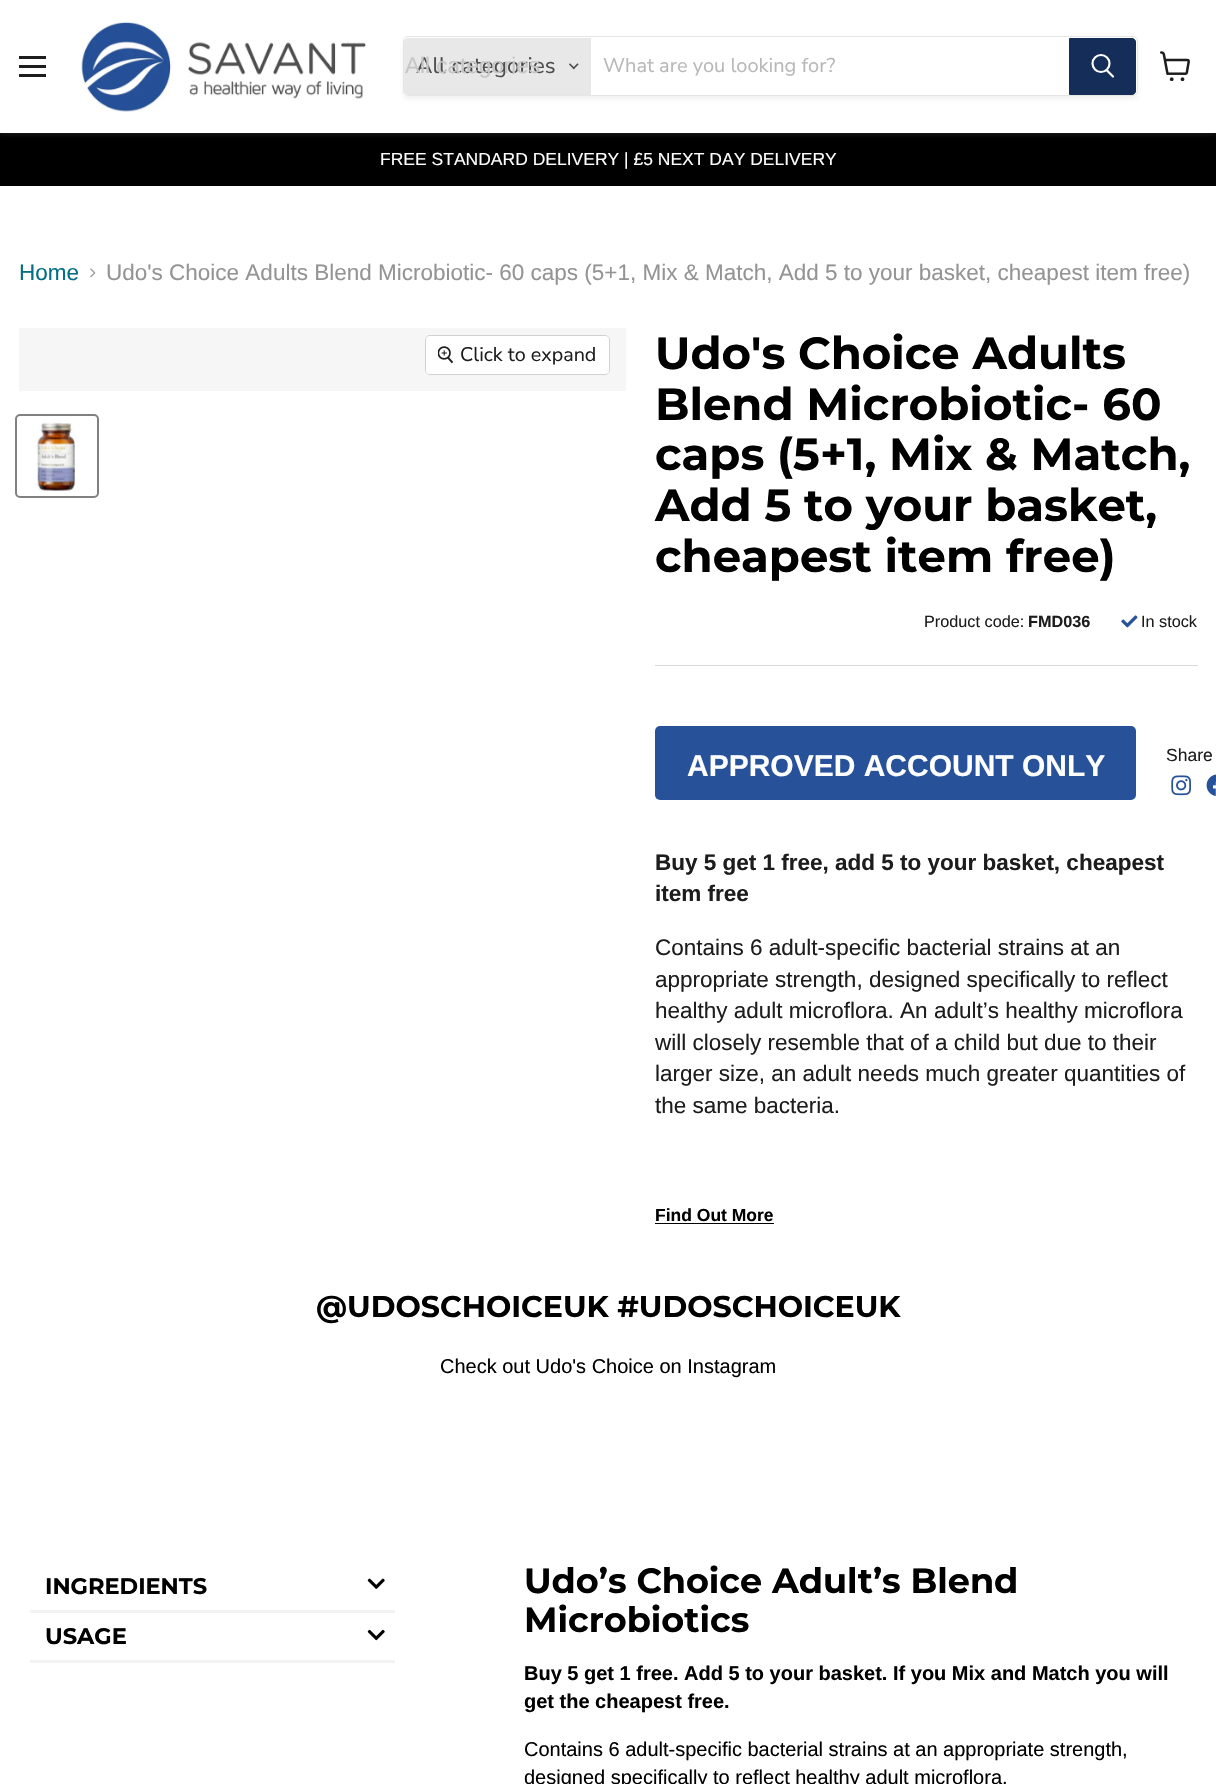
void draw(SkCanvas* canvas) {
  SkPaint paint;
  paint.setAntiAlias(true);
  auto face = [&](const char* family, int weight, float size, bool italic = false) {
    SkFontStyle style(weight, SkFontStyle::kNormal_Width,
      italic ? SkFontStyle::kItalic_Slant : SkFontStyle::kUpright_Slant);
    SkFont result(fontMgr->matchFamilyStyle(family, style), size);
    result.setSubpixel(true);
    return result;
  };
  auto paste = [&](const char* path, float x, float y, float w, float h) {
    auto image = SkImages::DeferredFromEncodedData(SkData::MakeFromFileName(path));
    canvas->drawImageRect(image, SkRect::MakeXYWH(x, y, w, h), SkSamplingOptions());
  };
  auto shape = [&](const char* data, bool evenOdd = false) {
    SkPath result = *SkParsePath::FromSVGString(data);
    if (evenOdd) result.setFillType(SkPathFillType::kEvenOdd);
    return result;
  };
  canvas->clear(0xffffffff);
  paint.setColor(0xff000000);
  canvas->drawRect(SkRect::MakeXYWH(0, 133, 1216, 53), paint);
  paint.setColor(0x40808080);
  paint.setMaskFilter(SkMaskFilter::MakeBlur(kNormal_SkBlurStyle, 2.5f));
  canvas->drawRect(SkRect::MakeXYWH(0, 1, 1216, 133), paint);
  paint.setMaskFilter(nullptr);
  {
    const struct { float x, y, w, h; SkColor color; } items[] = {
      {0, 0, 1216, 133, 0xffffffff},
      {19, 56, 27, 3, 0xff1d1d1d},
      {19, 65, 27, 3, 0xff1d1d1d},
      {19, 74, 27, 3, 0xff1d1d1d},
    };
    for (auto [x, y, w, h, color] : items) {
      paint.setColor(color);
      canvas->drawRect(SkRect::MakeXYWH(x, y, w, h), paint);
    }
  }
  paste("img/1.png", 80, 21, 286, 91);
  canvas->save();
  canvas->clipPath(shape("M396 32H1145V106H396ZM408 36H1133C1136 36 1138 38 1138 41V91C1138 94 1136 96 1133 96H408C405 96 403 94 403 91V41C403 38 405 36 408 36Z", true), true);
  paint.setColor(0x1c808080);
  paint.setMaskFilter(SkMaskFilter::MakeBlur(kNormal_SkBlurStyle, 2));
  canvas->drawRoundRect(SkRect::MakeXYWH(403, 39, 735, 60), 5, 5, paint);
  paint.setMaskFilter(nullptr);
  canvas->restore();
  paint.setStroke(true);
  paint.setStrokeWidth(1);
  paint.setColor(0x33808080);
  canvas->drawRoundRect(SkRect::MakeXYWH(403.5f, 36.5f, 734, 59), 4.5f, 4.5f, paint);
  paint.setStroke(false);
  paint.setColor(0xffe8e8e8);
  canvas->drawPath(shape("M408 38H591V95H408C406 95 404 93 404 91V42C404 40 406 38 408 38Z"), paint);
  paste("img/2.png", 569, 63, 10, 7);
  paint.setColor(0xff142d59);
  canvas->drawPath(shape("M1069.5 38.5H1132C1134 38.5 1135.5 40 1135.5 42V91C1135.5 93 1134 94.5 1132 94.5H1069.5Z"), paint);
  paint.setStroke(true);
  canvas->drawPath(shape("M1069.5 38.5H1132C1134 38.5 1135.5 40 1135.5 42V91C1135.5 93 1134 94.5 1132 94.5H1069.5Z"), paint);
  paint.setStrokeWidth(2.2f);
  paint.setStrokeCap(SkPaint::kRound_Cap);
  paint.setColor(0xffffffff);
  canvas->drawPath(shape("M1113 76.5L1107 70.5"), paint);
  paint.setStrokeCap(SkPaint::kButt_Cap);
  canvas->drawCircle(1101, 63.5f, 8.5f, paint);
  paste("img/3.png", 1160, 51, 30, 30);
  paste("img/4.png", 90, 268, 6, 10);
  paint.setStroke(false);
  paint.setColor(0xfff6f6f6);
  canvas->drawRect(SkRect::MakeXYWH(19, 328, 607, 63), paint);
  paint.setStroke(true);
  paint.setStrokeWidth(1);
  paint.setColor(0xffd1d1d1);
  canvas->drawRoundRect(SkRect::MakeXYWH(425.5f, 335.5f, 184, 39), 4.5f, 4.5f, paint);
  paint.setStroke(false);
  paint.setColor(0xe6ffffff);
  canvas->drawRoundRect(SkRect::MakeXYWH(426, 336, 183, 38), 4, 4, paint);
  paste("img/5.png", 438, 346, 16, 18);
  paint.setStroke(true);
  paint.setStrokeWidth(2);
  paint.setColor(0xff818181);
  canvas->drawRoundRect(SkRect::MakeXYWH(16, 415, 82, 82), 4, 4, paint);
  paste("img/6.png", 35, 422, 41, 70);
  paint.setStroke(false);
  paint.setColor(0xffd9d9d9);
  canvas->drawRect(SkRect::MakeXYWH(655, 665, 543, 1), paint);
  paste("img/7.png", 1121, 615, 17, 13);
  paint.setColor(0xff275199);
  canvas->drawRoundRect(SkRect::MakeXYWH(655, 726, 481, 74), 5, 5, paint);
  paste("img/8.png", 1171, 775, 20, 21);
  paste("img/9.png", 1206, 774, 10, 22);
  paint.setColor(0xff000000);
  canvas->drawRect(SkRect::MakeXYWH(655, 1223, 119, 1), paint);
  paint.setColor(0xfff3f3f3);
  canvas->drawRect(SkRect::MakeXYWH(30, 1610, 365, 3), paint);
  paste("img/10.png", 367, 1578, 18, 11);
  canvas->drawRect(SkRect::MakeXYWH(30, 1660, 365, 3), paint);
  paste("img/11.png", 367, 1629, 18, 12);
  auto f0 = face("Nunito Sans", 400, 22.5f);
  paint.setColor(0xff4d4d4d);
  canvas->drawString("All categories", 416, 73, f0, paint);
  auto f1 = face("Liberation Sans", 400, 22.5f);
  paint.setColor(0xffc6c6c6);
  canvas->drawString("All categories", 405, 73, f1, paint);
  auto f2 = face("Nunito Sans", 400, 20);
  paint.setColor(0xffb8b8b8);
  canvas->drawString("What are you looking for?", 603, 72, f2, paint);
  auto f3 = face("Liberation Sans", 400, 17.5f);
  paint.setColor(0xffffffff);
  canvas->drawString("FREE STANDARD DELIVERY | £5 NEXT DAY DELIVERY", 380, 165, f3, paint);
  paint.setColor(0xff046e82);
  canvas->drawString("Home", 19, 280, f1, paint);
  paint.setColor(0xff949494);
  canvas->drawString("Udo's Choice Adults Blend Microbiotic- 60 caps (5+1, Mix & Match, Add 5 to your basket, cheapest item free)", 106, 280, f1, paint);
  auto f4 = face("Nunito Sans", 400, 19.75f);
  paint.setColor(0xff1d1d1d);
  canvas->drawString("Click to expand", 460, 361, f4, paint);
  auto f5 = face("Montserrat", 700, 45);
  paint.setColor(0xff000000);
  {
    const struct { const char* s; float x, y; } items[] = {
      {"Udo's Choice Adults", 655, 369},
      {"Blend Microbiotic- 60", 655, 420},
      {"caps (5+1, Mix & Match,", 655, 470},
      {"Add 5 to your basket,", 655, 521},
      {"cheapest item free)", 655, 572},
    };
    for (auto [s, x, y] : items) {
      canvas->drawString(s, x, y, f5, paint);
    }
  }
  auto f6 = face("Liberation Sans", 400, 16.25f);
  paint.setColor(0xff1d1d1d);
  canvas->drawString("Product code:", 924, 627, f6, paint);
  auto f7 = face("Liberation Sans", 700, 16.25f);
  canvas->drawString("FMD036", 1028, 627, f7, paint);
  canvas->drawString("In stock", 1141, 627, f6, paint);
  auto f8 = face("Liberation Sans", 700, 30);
  paint.setColor(0xffffffff);
  canvas->drawString("APPROVED ACCOUNT ONLY", 687, 776, f8, paint);
  paint.setColor(0xff1d1d1d);
  canvas->drawString("Share", 1166, 761, f3, paint);
  auto f9 = face("Liberation Sans", 700, 22.5f);
  canvas->drawString("Buy 5 get 1 free, add 5 to your basket, cheapest", 655, 870, f9, paint);
  canvas->drawString("item free", 655, 901, f9, paint);
  {
    const struct { const char* s; float x, y; } items[] = {
      {"Contains 6 adult-specific bacterial strains at an", 655, 955},
      {"appropriate strength, designed specifically to reflect", 655, 987},
      {"healthy adult microflora. An adult’s healthy microflora", 655, 1018},
      {"will closely resemble that of a child but due to their", 655, 1050},
      {"larger size, an adult needs much greater quantities of", 655, 1081},
      {"the same bacteria.", 655, 1113},
    };
    for (auto [s, x, y] : items) {
      canvas->drawString(s, x, y, f1, paint);
    }
  }
  auto f10 = face("Liberation Sans", 700, 17.5f);
  paint.setColor(0xff000000);
  canvas->drawString("Find Out More", 655, 1221, f10, paint);
  auto f11 = face("Montserrat", 700, 30);
  canvas->drawString("@UDOSCHOICEUK #UDOSCHOICEUK", 316, 1317, f11, paint);
  auto f12 = face("Liberation Sans", 400, 20);
  canvas->drawString("Check out Udo's Choice on Instagram", 440, 1373, f12, paint);
  auto f13 = face("Montserrat", 700, 22.5f);
  canvas->drawString("INGREDIENTS", 45, 1594, f13, paint);
  canvas->drawString("USAGE", 45, 1644, f13, paint);
  auto f14 = face("Montserrat", 700, 35);
  canvas->drawString("Udo’s Choice Adult’s Blend", 524, 1593, f14, paint);
  canvas->drawString("Microbiotics", 524, 1632, f14, paint);
  auto f15 = face("Liberation Sans", 700, 20);
  canvas->drawString("Buy 5 get 1 free. Add 5 to your basket. If you Mix and Match you will", 524, 1680, f15, paint);
  canvas->drawString("get the cheapest free.", 524, 1708, f15, paint);
  canvas->drawString("Contains 6 adult-specific bacterial strains at an appropriate strength,", 524, 1756, f12, paint);
  canvas->drawString("designed specifically to reflect healthy adult microflora.", 524, 1784, f12, paint);
}
